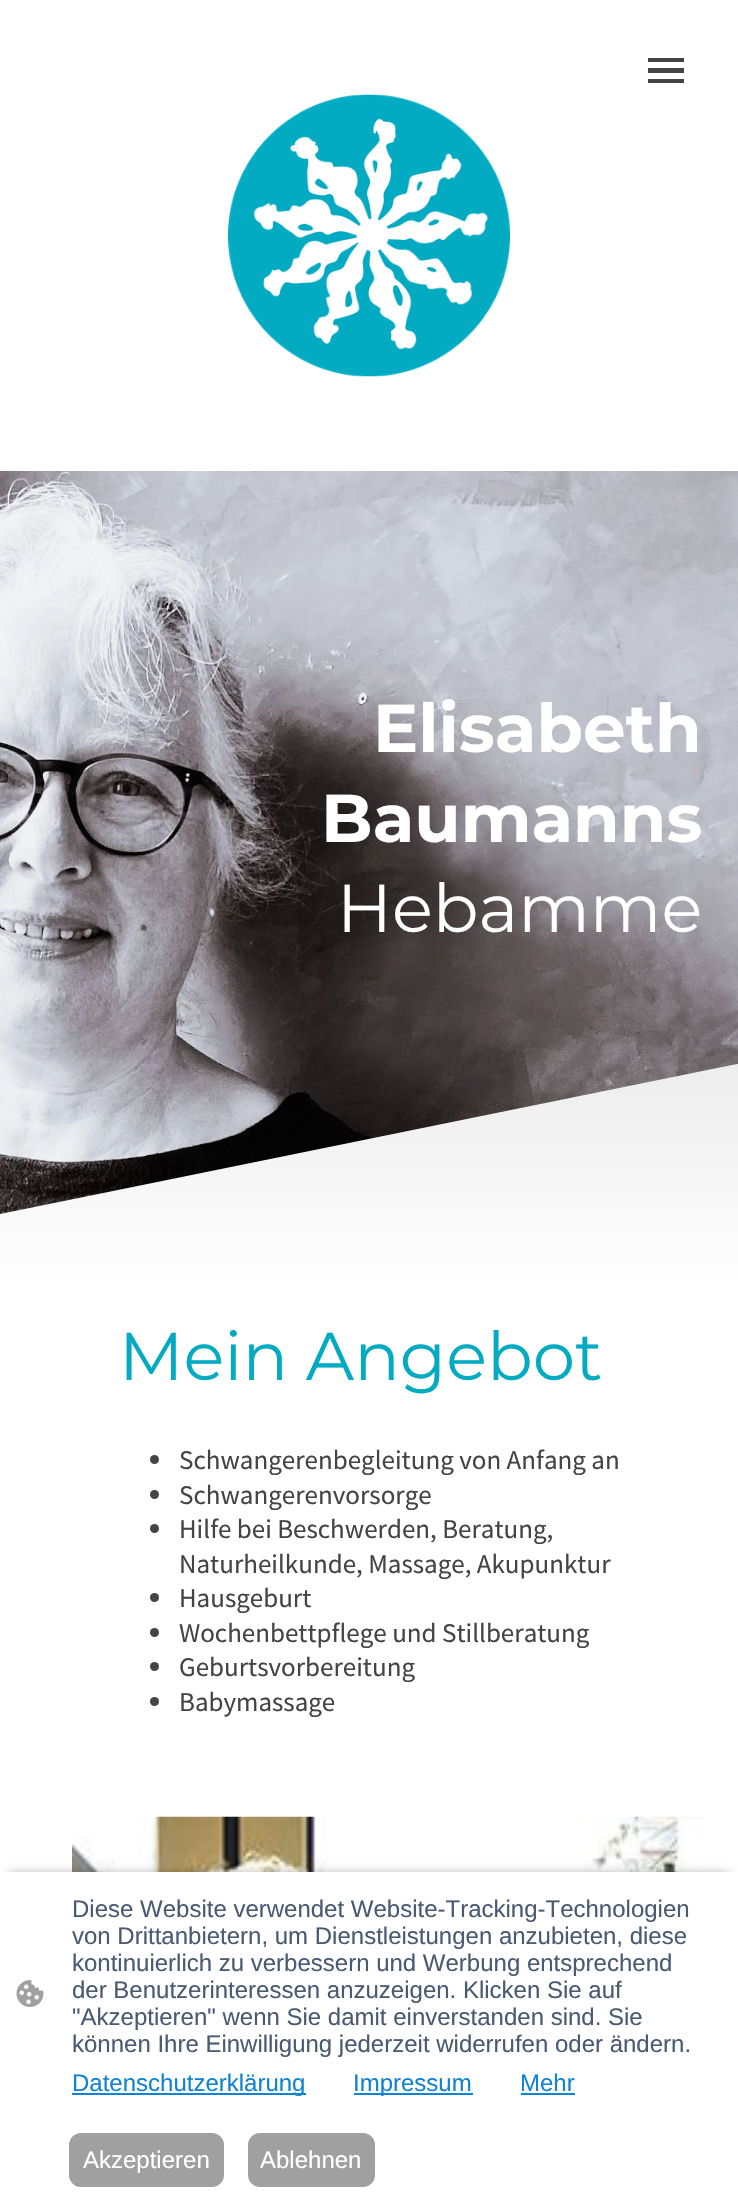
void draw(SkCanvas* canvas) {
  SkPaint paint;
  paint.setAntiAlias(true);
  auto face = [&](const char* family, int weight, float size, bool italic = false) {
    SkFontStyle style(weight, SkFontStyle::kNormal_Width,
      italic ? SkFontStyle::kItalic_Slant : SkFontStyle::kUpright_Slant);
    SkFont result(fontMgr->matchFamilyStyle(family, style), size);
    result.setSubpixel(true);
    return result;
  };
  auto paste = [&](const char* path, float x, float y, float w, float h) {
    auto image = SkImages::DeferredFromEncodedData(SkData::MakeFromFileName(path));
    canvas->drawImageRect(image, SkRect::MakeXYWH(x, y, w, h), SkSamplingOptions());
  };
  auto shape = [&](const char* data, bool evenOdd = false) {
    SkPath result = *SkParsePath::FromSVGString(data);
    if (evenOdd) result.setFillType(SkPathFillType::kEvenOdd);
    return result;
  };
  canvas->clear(0xffffffff);
  {
    const struct { float x, y, w, h; SkColor color; } items[] = {
      {648, 58, 36, 4, 0xff444444},
      {648, 68, 36, 5, 0xff444444},
      {648, 79, 36, 4, 0xff444444},
    };
    for (auto [x, y, w, h, color] : items) {
      paint.setColor(color);
      canvas->drawRect(SkRect::MakeXYWH(x, y, w, h), paint);
    }
  }
  paste("img/1.png", 228, 94, 282, 283);
  paste("img/2.png", 0, 471, 738, 743);
  paint.setColor(0xffffffff);
  canvas->drawPath(shape("M0 1214V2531H738V1064H737Z"), paint);
  {
    const SkColor colors[] = {0x12000000, 0x00000000};
    const float stops[] = {0, 1};
    const SkPoint ends[] = {{369, 1064}, {369, 1289}};
    paint.setShader(SkGradientShader::MakeLinear(ends, colors, stops, 2, SkTileMode::kClamp));
    paint.setAlpha(255);
  }
  canvas->drawPath(shape("M0 1214V1289H738V1064H737Z"), paint);
  paint.setShader(nullptr);
  paint.setColor(0xff444444);
  canvas->drawCircle(154.5f, 1459.5f, 4.5f, paint);
  canvas->drawCircle(154.5f, 1494.5f, 4.5f, paint);
  canvas->drawCircle(154.5f, 1528.5f, 4.5f, paint);
  canvas->drawCircle(154.5f, 1597.5f, 4.5f, paint);
  canvas->drawCircle(154.5f, 1632.5f, 4.5f, paint);
  canvas->drawCircle(154.5f, 1666.5f, 4.5f, paint);
  canvas->drawCircle(154.5f, 1701.5f, 4.5f, paint);
  paste("img/3.png", 72, 1816, 633, 56);
  paint.setColor(0xa1000000);
  paint.setMaskFilter(SkMaskFilter::MakeBlur(kNormal_SkBlurStyle, 6));
  canvas->drawRect(SkRect::MakeXYWH(9, 1877, 720, 309), paint);
  paint.setMaskFilter(nullptr);
  paint.setColor(0xffffffff);
  canvas->drawRect(SkRect::MakeXYWH(0, 1872, 738, 327), paint);
  paste("img/4.png", 16, 1980, 28, 27);
  {
    const struct { float x, y, w, h; SkColor color; } items[] = {
      {72, 2093, 234, 2, 0xff1183d1},
      {354, 2093, 119, 2, 0xff1183d1},
      {521, 2093, 54, 2, 0xff1183d1},
    };
    for (auto [x, y, w, h, color] : items) {
      paint.setColor(color);
      canvas->drawRect(SkRect::MakeXYWH(x, y, w, h), paint);
    }
  }
  paint.setColor(0xffa0a0a0);
  canvas->drawRoundRect(SkRect::MakeXYWH(70, 2134, 153, 52), 11, 11, paint);
  paint.setStroke(true);
  paint.setStrokeWidth(2);
  canvas->drawRoundRect(SkRect::MakeXYWH(70, 2134, 153, 52), 11, 11, paint);
  paint.setStroke(false);
  canvas->drawRoundRect(SkRect::MakeXYWH(249, 2134, 125, 52), 11, 11, paint);
  paint.setStroke(true);
  canvas->drawRoundRect(SkRect::MakeXYWH(249, 2134, 125, 52), 11, 11, paint);
  auto f0 = face("Montserrat", 700, 67.5f);
  paint.setStroke(false);
  paint.setColor(0xffffffff);
  canvas->drawString("Elisabeth", 373, 752, f0, paint);
  canvas->drawString("Baumanns", 321, 842, f0, paint);
  auto f1 = face("Montserrat", 400, 67.5f);
  canvas->drawString("Hebamme", 337, 932, f1, paint);
  paint.setColor(0xff03abc2);
  canvas->drawString("Mein Angebot", 119, 1380, f1, paint);
  auto f2 = face("Source Sans Pro", 400, 27);
  paint.setColor(0xff444444);
  {
    const struct { const char* s; float x, y; } items[] = {
      {"Schwangerenbegleitung von Anfang an", 179, 1469},
      {"Schwangerenvorsorge", 179, 1504},
      {"Hilfe bei Beschwerden, Beratung,", 179, 1538},
      {"Naturheilkunde, Massage, Akupunktur", 179, 1573},
      {"Hausgeburt", 179, 1607},
      {"Wochenbettpflege und Stillberatung", 179, 1642},
      {"Geburtsvorbereitung", 179, 1676},
      {"Babymassage", 179, 1711},
    };
    for (auto [s, x, y] : items) {
      canvas->drawString(s, x, y, f2, paint);
    }
  }
  auto f3 = face("Liberation Sans", 400, 24);
  paint.setColor(0xff4a5a73);
  {
    const struct { const char* s; float x, y; } items[] = {
      {"Diese Website verwendet Website-Tracking-Technologien", 72, 1917},
      {"von Drittanbietern, um Dienstleistungen anzubieten, diese", 72, 1944},
      {"kontinuierlich zu verbessern und Werbung entsprechend", 72, 1971},
      {"der Benutzerinteressen anzuzeigen. Klicken Sie auf", 72, 1998},
      {"\"Akzeptieren\" wenn Sie damit einverstanden sind. Sie", 72, 2025},
      {"können Ihre Einwilligung jederzeit widerrufen oder ändern.", 72, 2052},
    };
    for (auto [s, x, y] : items) {
      canvas->drawString(s, x, y, f3, paint);
    }
  }
  paint.setColor(0xff1183d1);
  {
    const struct { const char* s; float x, y; } items[] = {
      {"Datenschutzerklärung", 72, 2091},
      {"Impressum", 353, 2091},
      {"Mehr", 520, 2091},
    };
    for (auto [s, x, y] : items) {
      canvas->drawString(s, x, y, f3, paint);
    }
  }
  paint.setColor(0xffffffff);
  canvas->drawString("Akzeptieren", 83, 2168, f3, paint);
  canvas->drawString("Ablehnen", 260, 2168, f3, paint);
}
